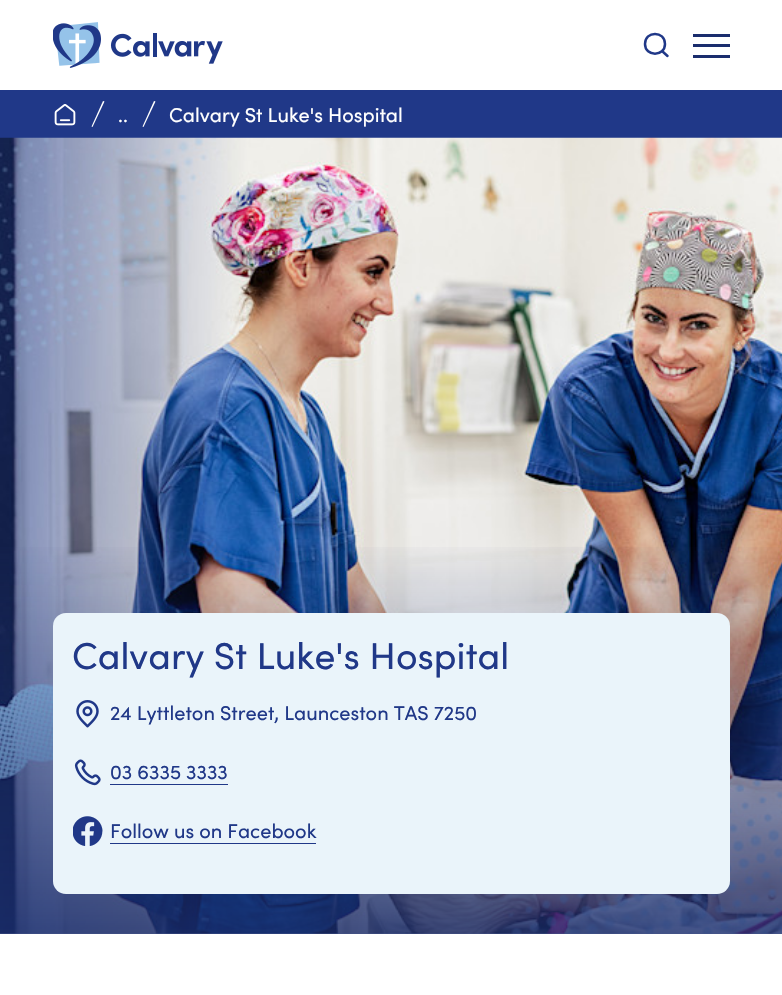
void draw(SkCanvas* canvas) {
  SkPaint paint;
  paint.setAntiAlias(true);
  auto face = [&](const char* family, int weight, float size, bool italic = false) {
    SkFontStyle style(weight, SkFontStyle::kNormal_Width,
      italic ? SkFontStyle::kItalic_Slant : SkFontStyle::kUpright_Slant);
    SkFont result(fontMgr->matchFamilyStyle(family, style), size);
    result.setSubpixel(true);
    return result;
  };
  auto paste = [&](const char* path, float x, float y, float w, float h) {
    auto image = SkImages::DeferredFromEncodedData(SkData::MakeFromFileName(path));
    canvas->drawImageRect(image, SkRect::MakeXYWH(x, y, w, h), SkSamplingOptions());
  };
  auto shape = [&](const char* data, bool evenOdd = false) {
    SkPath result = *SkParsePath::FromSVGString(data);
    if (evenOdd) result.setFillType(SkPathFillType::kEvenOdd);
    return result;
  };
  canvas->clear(0xfff1f1f1);
  paint.setColor(0xffffffff);
  canvas->drawRect(SkRect::MakeXYWH(0, 0, 782, 90), paint);
  paste("img/1.png", 53, 22, 170, 46);
  paint.setStroke(true);
  paint.setStrokeWidth(2.5f);
  paint.setStrokeCap(SkPaint::kRound_Cap);
  paint.setStrokeJoin(SkPaint::kRound_Join);
  paint.setColor(0xff203888);
  canvas->drawPath(shape("M667.5 56L662 51M665 44C665 57 645 57 645 44C645 30.5 665 30.5 665 44Z"), paint);
  paint.setStroke(false);
  {
    const struct { float x, y, w, h; SkColor color; } items[] = {
      {693, 34, 37, 3, 0xff1a2d6d},
      {693, 44, 37, 3, 0xff1a2d6d},
      {693, 55, 37, 3, 0xff1a2d6d},
      {0, 90, 782, 48, 0xff203888},
    };
    for (auto [x, y, w, h, color] : items) {
      paint.setColor(color);
      canvas->drawRect(SkRect::MakeXYWH(x, y, w, h), paint);
    }
  }
  paste("img/2.png", 54, 104, 22, 22);
  paint.setColor(0xffffffff);
  canvas->drawPath(shape("M103 101L104.5 101.5L92.5 127L91.5 126.5Z"), paint);
  canvas->drawPath(shape("M154 101L155.5 101.5L143.5 127L142.5 126.5Z"), paint);
  paste("img/3.png", 0, 137, 782, 797);
  {
    const SkColor colors[] = {0xcc1a2d6d, 0x001a2d6d};
    const float stops[] = {0, 0.5f};
    const SkPoint ends[] = {{391, 934}, {391, 138}};
    paint.setShader(SkGradientShader::MakeLinear(ends, colors, stops, 2, SkTileMode::kClamp));
    paint.setAlpha(255);
  }
  canvas->drawRect(SkRect::MakeXYWH(0, 547, 782, 387), paint);
  paint.setShader(nullptr);
  paint.setColor(0xffeaf4fa);
  canvas->drawRoundRect(SkRect::MakeXYWH(53, 613, 677, 281), 13, 13, paint);
  paste("img/4.png", 76, 700, 23, 28);
  paste("img/5.png", 74, 759, 27, 27);
  paint.setColor(0xff203888);
  canvas->drawRect(SkRect::MakeXYWH(110, 784, 118, 1), paint);
  paste("img/6.png", 73, 816, 30, 30);
  canvas->drawRect(SkRect::MakeXYWH(110, 843, 206, 1), paint);
  paint.setColor(0xffffffff);
  canvas->drawRect(SkRect::MakeXYWH(0, 934, 782, 61), paint);
  auto f0 = face("Sofia", 400, 20);
  canvas->drawString("..", 118, 122, f0, paint);
  canvas->drawString("Calvary St Luke's Hospital", 169, 122, f0, paint);
  auto f1 = face("Sofia", 400, 37.4f);
  paint.setColor(0xff203888);
  canvas->drawString("Calvary St Luke's Hospital", 72, 669, f1, paint);
  {
    const struct { const char* s; float x, y; } items[] = {
      {"24 Lyttleton Street, Launceston TAS 7250", 110, 720},
      {"03 6335 3333", 110, 779},
      {"Follow us on Facebook", 110, 838},
    };
    for (auto [s, x, y] : items) {
      canvas->drawString(s, x, y, f0, paint);
    }
  }
}
